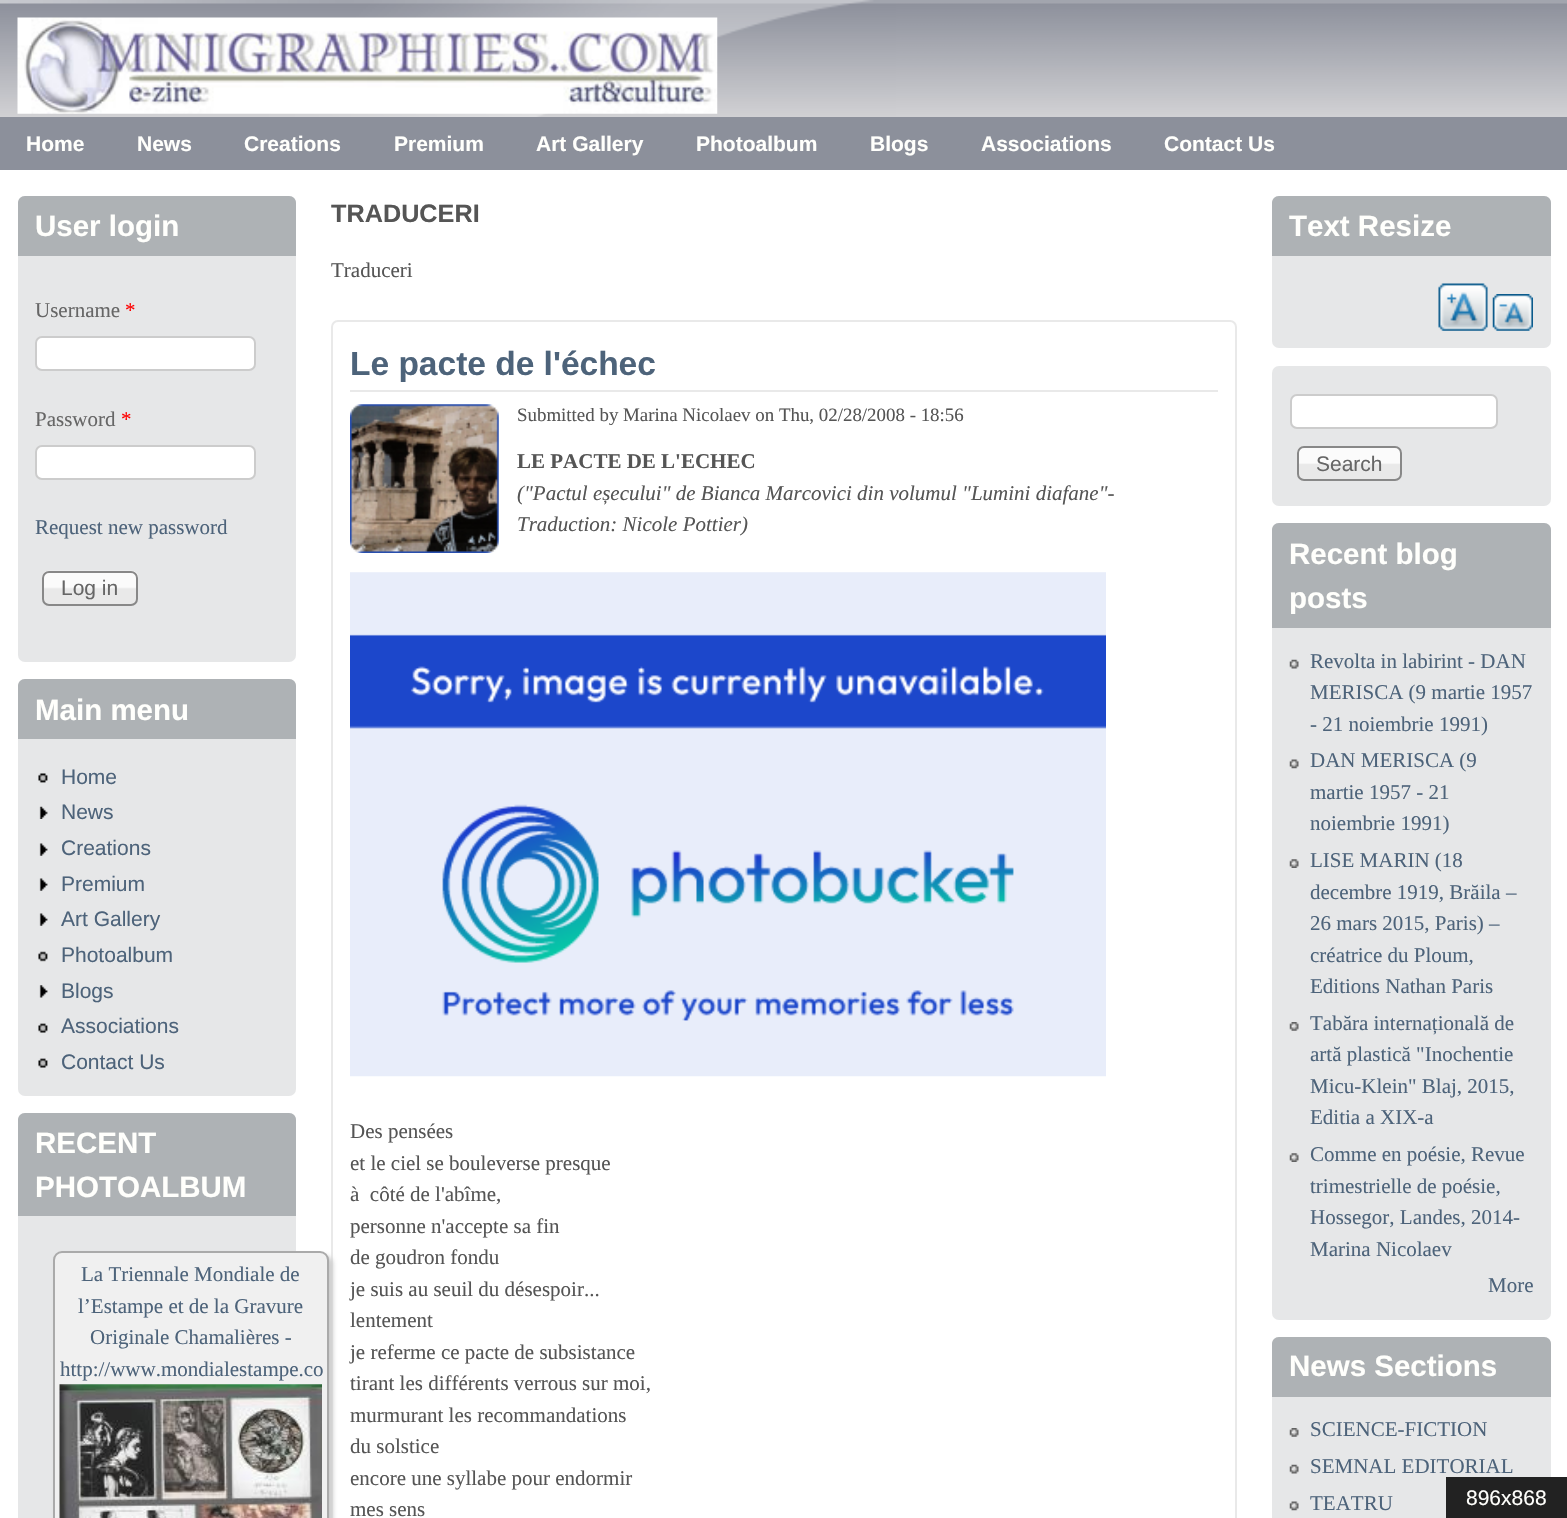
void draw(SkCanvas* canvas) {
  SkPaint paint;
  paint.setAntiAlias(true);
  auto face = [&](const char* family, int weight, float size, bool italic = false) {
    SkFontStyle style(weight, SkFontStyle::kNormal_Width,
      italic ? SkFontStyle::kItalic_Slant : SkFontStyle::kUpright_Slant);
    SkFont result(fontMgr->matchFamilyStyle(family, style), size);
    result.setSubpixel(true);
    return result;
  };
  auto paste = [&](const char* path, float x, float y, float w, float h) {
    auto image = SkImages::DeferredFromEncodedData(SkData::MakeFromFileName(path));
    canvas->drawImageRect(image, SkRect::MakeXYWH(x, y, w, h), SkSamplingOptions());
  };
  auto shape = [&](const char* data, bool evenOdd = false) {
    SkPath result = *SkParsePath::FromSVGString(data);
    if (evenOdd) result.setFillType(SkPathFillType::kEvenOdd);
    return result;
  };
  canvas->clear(0xffffffff);
  paste("img/1.png", 896, 0, 671, 117);
  paste("img/2.png", 0, 0, 896, 117);
  paste("img/3.png", 17, 17, 701, 97);
  paint.setColor(0xff8c909b);
  canvas->drawRect(SkRect::MakeXYWH(0, 117, 1567, 53), paint);
  paint.setColor(0xffe6e7e8);
  canvas->drawRoundRect(SkRect::MakeXYWH(18, 196, 278, 466), 7, 7, paint);
  paint.setColor(0xffaeb2b5);
  canvas->drawPath(shape("M25 196H289C293 196 296 199 296 203V256H18V203C18 199 21 196 25 196Z"), paint);
  paint.setColor(0xffffffff);
  canvas->drawRoundRect(SkRect::MakeXYWH(36, 337, 219, 33), 6, 6, paint);
  paint.setStroke(true);
  paint.setStrokeWidth(2);
  paint.setColor(0xffcccccc);
  canvas->drawRoundRect(SkRect::MakeXYWH(36, 337, 219, 33), 6, 6, paint);
  paint.setStroke(false);
  paint.setColor(0xffffffff);
  canvas->drawRoundRect(SkRect::MakeXYWH(36, 446, 219, 33), 6, 6, paint);
  paint.setStroke(true);
  paint.setColor(0xffcccccc);
  canvas->drawRoundRect(SkRect::MakeXYWH(36, 446, 219, 33), 6, 6, paint);
  paste("img/4.png", 42, 570, 96, 36);
  paint.setColor(0xff888888);
  canvas->drawRoundRect(SkRect::MakeXYWH(43, 572, 94, 33), 6, 6, paint);
  paint.setStroke(false);
  paint.setColor(0xffe6e7e8);
  canvas->drawRoundRect(SkRect::MakeXYWH(18, 679, 278, 417), 7, 7, paint);
  paint.setColor(0xffaeb2b5);
  canvas->drawPath(shape("M25 679H289C293 679 296 682 296 686V739H18V686C18 682 21 679 25 679Z"), paint);
  paste("img/5.png", 38, 773, 10, 10);
  paste("img/6.png", 39, 806, 9, 13);
  paste("img/7.png", 39, 843, 9, 13);
  paste("img/7.png", 39, 878, 9, 13);
  paste("img/7.png", 39, 913, 9, 13);
  paste("img/8.png", 38, 951, 10, 11);
  paste("img/9.png", 39, 985, 9, 13);
  paste("img/10.png", 38, 1023, 10, 10);
  paste("img/10.png", 38, 1058, 10, 10);
  paint.setColor(0xffe6e7e8);
  canvas->drawRoundRect(SkRect::MakeXYWH(18, 1113, 278, 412), 7, 7, paint);
  paint.setColor(0xffaeb2b5);
  canvas->drawPath(shape("M25 1113H289C293 1113 296 1116 296 1120V1216H18V1120C18 1116 21 1113 25 1113Z"), paint);
  paint.setStroke(true);
  paint.setColor(0xffe9e9e9);
  canvas->drawRoundRect(SkRect::MakeXYWH(332, 321, 904, 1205), 6, 6, paint);
  paint.setStroke(false);
  paint.setColor(0xffcccccc);
  paint.setMaskFilter(SkMaskFilter::MakeBlur(kNormal_SkBlurStyle, 2));
  canvas->drawRoundRect(SkRect::MakeXYWH(56, 1255, 277, 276), 9, 9, paint);
  paint.setMaskFilter(nullptr);
  paint.setColor(0xfff0f0f0);
  canvas->drawRoundRect(SkRect::MakeXYWH(54, 1252, 274, 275), 8, 8, paint);
  paint.setStroke(true);
  paint.setColor(0xffaaaaaa);
  canvas->drawRoundRect(SkRect::MakeXYWH(54, 1252, 274, 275), 8, 8, paint);
  paste("img/11.png", 59, 1384, 263, 134);
  paint.setStroke(false);
  paint.setColor(0xffe9e9e9);
  canvas->drawRect(SkRect::MakeXYWH(350, 390, 868, 2), paint);
  paste("img/12.png", 350, 404, 149, 149);
  paste("img/13.png", 350, 572, 756, 505);
  paint.setColor(0xffe6e7e8);
  canvas->drawRoundRect(SkRect::MakeXYWH(1272, 196, 279, 152), 7, 7, paint);
  paint.setColor(0xffaeb2b5);
  canvas->drawPath(shape("M1279 196H1544C1548 196 1551 199 1551 203V256H1272V203C1272 199 1275 196 1279 196Z"), paint);
  paste("img/14.png", 1438, 283, 50, 48);
  paste("img/15.png", 1492, 294, 41, 37);
  paint.setColor(0xffe6e7e8);
  canvas->drawRoundRect(SkRect::MakeXYWH(1272, 366, 279, 140), 7, 7, paint);
  paint.setColor(0xffffffff);
  canvas->drawRoundRect(SkRect::MakeXYWH(1291, 395, 206, 33), 6, 6, paint);
  paint.setStroke(true);
  paint.setColor(0xffcccccc);
  canvas->drawRoundRect(SkRect::MakeXYWH(1291, 395, 206, 33), 6, 6, paint);
  paste("img/16.png", 1297, 448, 105, 33);
  paint.setColor(0xff888888);
  canvas->drawRoundRect(SkRect::MakeXYWH(1298, 447, 103, 33), 6, 6, paint);
  paint.setStroke(false);
  paint.setColor(0xffe6e7e8);
  canvas->drawRoundRect(SkRect::MakeXYWH(1272, 523, 279, 797), 7, 7, paint);
  paint.setColor(0xffaeb2b5);
  canvas->drawPath(shape("M1279 523H1544C1548 523 1551 526 1551 530V628H1272V530C1272 526 1275 523 1279 523Z"), paint);
  paste("img/17.png", 1289, 659, 10, 10);
  paste("img/18.png", 1289, 759, 10, 10);
  paste("img/19.png", 1289, 859, 10, 9);
  paste("img/20.png", 1289, 1022, 10, 9);
  paste("img/19.png", 1289, 1153, 10, 9);
  paint.setColor(0xffe6e7e8);
  canvas->drawRoundRect(SkRect::MakeXYWH(1272, 1337, 279, 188), 7, 7, paint);
  paint.setColor(0xffaeb2b5);
  canvas->drawPath(shape("M1279 1337H1544C1548 1337 1551 1340 1551 1344V1397H1272V1344C1272 1340 1275 1337 1279 1337Z"), paint);
  paste("img/20.png", 1289, 1428, 10, 9);
  paste("img/17.png", 1289, 1464, 10, 10);
  paste("img/18.png", 1289, 1501, 10, 10);
  paint.setColor(0xff222222);
  canvas->drawRect(SkRect::MakeXYWH(1446, 1477, 121, 41), paint);
  auto f0 = face("Liberation Sans", 700, 21);
  paint.setColor(0xfffffffc);
  {
    const struct { const char* s; float x, y; } items[] = {
      {"Home", 26, 151},
      {"News", 137, 151},
      {"Creations", 244, 151},
      {"Premium", 394, 151},
      {"Art Gallery", 536, 151},
      {"Photoalbum", 696, 151},
      {"Blogs", 870, 151},
      {"Associations", 981, 151},
      {"Contact Us", 1164, 151},
    };
    for (auto [s, x, y] : items) {
      canvas->drawString(s, x, y, f0, paint);
    }
  }
  auto f1 = face("Liberation Sans", 700, 29.5f);
  canvas->drawString("User login", 35, 236, f1, paint);
  auto f2 = face("Liberation Serif", 400, 21);
  paint.setColor(0xff666666);
  canvas->drawString("Username", 35, 317, f2, paint);
  paint.setColor(0xffff0000);
  canvas->drawString("*", 125, 317, f2, paint);
  paint.setColor(0xff666666);
  canvas->drawString("Password", 35, 426, f2, paint);
  paint.setColor(0xffff0000);
  canvas->drawString("*", 121, 426, f2, paint);
  paint.setColor(0xff4d637a);
  canvas->drawString("Request new password", 35, 534, f2, paint);
  auto f3 = face("Liberation Sans", 400, 21);
  paint.setColor(0xff666666);
  canvas->drawString("Log in", 61, 595, f3, paint);
  paint.setColor(0xfffffffc);
  canvas->drawString("Main menu", 35, 720, f1, paint);
  paint.setColor(0xff4d637a);
  {
    const struct { const char* s; float x, y; } items[] = {
      {"Home", 61, 784},
      {"News", 61, 819},
      {"Creations", 61, 855},
      {"Premium", 61, 891},
      {"Art Gallery", 61, 926},
      {"Photoalbum", 61, 962},
      {"Blogs", 61, 998},
      {"Associations", 61, 1033},
      {"Contact Us", 61, 1069},
    };
    for (auto [s, x, y] : items) {
      canvas->drawString(s, x, y, f3, paint);
    }
  }
  paint.setColor(0xfffffffc);
  canvas->drawString("RECENT", 35, 1153, f1, paint);
  canvas->drawString("PHOTOALBUM", 35, 1197, f1, paint);
  paint.setColor(0xff4d637a);
  {
    const struct { const char* s; float x, y; } items[] = {
      {"La Triennale Mondiale de", 81, 1281},
      {"l’Estampe et de la Gravure", 78, 1313},
      {"Originale Chamalières -", 90, 1344},
      {"http://www.mondialestampe.co", 60, 1376},
    };
    for (auto [s, x, y] : items) {
      canvas->drawString(s, x, y, f2, paint);
    }
  }
  auto f4 = face("Liberation Sans", 700, 25.25f);
  paint.setColor(0xff555555);
  canvas->drawString("TRADUCERI", 331, 222, f4, paint);
  canvas->drawString("Traduceri", 331, 277, f2, paint);
  auto f5 = face("Liberation Sans", 700, 33.5f);
  paint.setColor(0xff4d637a);
  canvas->drawString("Le pacte de l'échec", 350, 375, f5, paint);
  auto f6 = face("Liberation Serif", 400, 18.9f);
  paint.setColor(0xff555555);
  canvas->drawString("Submitted by Marina Nicolaev on Thu, 02/28/2008 - 18:56", 517, 421, f6, paint);
  auto f7 = face("Liberation Serif", 700, 21);
  canvas->drawString("LE PACTE DE L'ECHEC", 517, 468, f7, paint);
  auto f8 = face("Liberation Serif", 400, 21, true);
  canvas->drawString("(\"Pactul eșecului\" de Bianca Marcovici din volumul \"Lumini diafane\"-", 517, 500, f8, paint);
  canvas->drawString("Traduction: Nicole Pottier)", 517, 531, f8, paint);
  {
    const struct { const char* s; float x, y; } items[] = {
      {"Des pensées", 350, 1138},
      {"et le ciel se bouleverse presque", 350, 1170},
      {"à  côté de l'abîme,", 350, 1201},
      {"personne n'accepte sa fin", 350, 1233},
      {"de goudron fondu", 350, 1264},
      {"je suis au seuil du désespoir...", 350, 1296},
      {"lentement", 350, 1327},
      {"je referme ce pacte de subsistance", 350, 1359},
      {"tirant les différents verrous sur moi,", 350, 1390},
      {"murmurant les recommandations", 350, 1422},
      {"du solstice", 350, 1453},
      {"encore une syllabe pour endormir", 350, 1485},
      {"mes sens", 350, 1516},
    };
    for (auto [s, x, y] : items) {
      canvas->drawString(s, x, y, f2, paint);
    }
  }
  paint.setColor(0xfffffffc);
  canvas->drawString("Text Resize", 1289, 236, f1, paint);
  paint.setColor(0xff666666);
  canvas->drawString("Search", 1316, 471, f3, paint);
  paint.setColor(0xfffffffc);
  canvas->drawString("Recent blog", 1289, 564, f1, paint);
  canvas->drawString("posts", 1289, 608, f1, paint);
  paint.setColor(0xff4d637a);
  {
    const struct { const char* s; float x, y; } items[] = {
      {"Revolta in labirint - DAN", 1310, 668},
      {"MERISCA (9 martie 1957", 1310, 699},
      {"- 21 noiembrie 1991)", 1310, 731},
      {"DAN MERISCA (9", 1310, 767},
      {"martie 1957 - 21", 1310, 799},
      {"noiembrie 1991)", 1310, 830},
      {"LISE MARIN (18", 1310, 867},
      {"decembre 1919, Brăila –", 1310, 899},
      {"26 mars 2015, Paris) –", 1310, 930},
      {"créatrice du Ploum,", 1310, 962},
      {"Editions Nathan Paris", 1310, 993},
      {"Tabăra internațională de", 1310, 1030},
      {"artă plastică \"Inochentie", 1310, 1061},
      {"Micu-Klein\" Blaj, 2015,", 1310, 1093},
      {"Editia a XIX-a", 1310, 1124},
      {"Comme en poésie, Revue", 1310, 1161},
      {"trimestrielle de poésie,", 1310, 1193},
      {"Hossegor, Landes, 2014-", 1310, 1224},
      {"Marina Nicolaev", 1310, 1256},
      {"More", 1488, 1292},
    };
    for (auto [s, x, y] : items) {
      canvas->drawString(s, x, y, f2, paint);
    }
  }
  paint.setColor(0xfffffffc);
  canvas->drawString("News Sections", 1289, 1376, f1, paint);
  paint.setColor(0xff4d637a);
  {
    const struct { const char* s; float x, y; } items[] = {
      {"SCIENCE-FICTION", 1310, 1436},
      {"SEMNAL EDITORIAL", 1310, 1473},
      {"TEATRU", 1310, 1510},
    };
    for (auto [s, x, y] : items) {
      canvas->drawString(s, x, y, f2, paint);
    }
  }
  paint.setColor(0xfffffffc);
  canvas->drawString("896x868", 1466, 1505, f3, paint);
}
